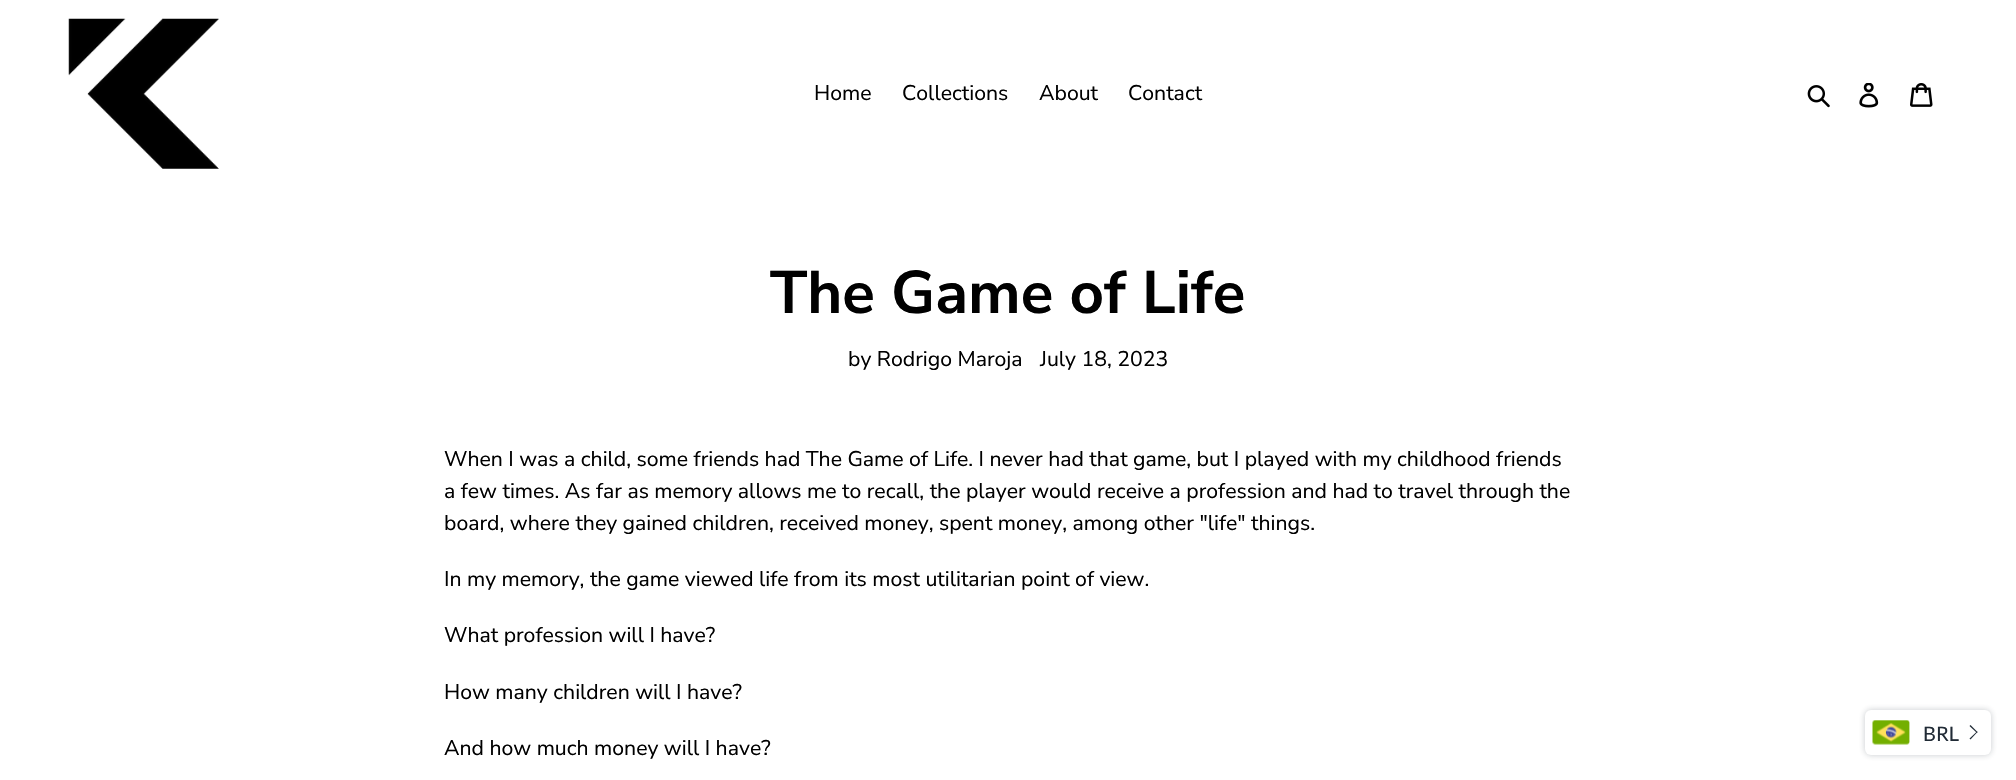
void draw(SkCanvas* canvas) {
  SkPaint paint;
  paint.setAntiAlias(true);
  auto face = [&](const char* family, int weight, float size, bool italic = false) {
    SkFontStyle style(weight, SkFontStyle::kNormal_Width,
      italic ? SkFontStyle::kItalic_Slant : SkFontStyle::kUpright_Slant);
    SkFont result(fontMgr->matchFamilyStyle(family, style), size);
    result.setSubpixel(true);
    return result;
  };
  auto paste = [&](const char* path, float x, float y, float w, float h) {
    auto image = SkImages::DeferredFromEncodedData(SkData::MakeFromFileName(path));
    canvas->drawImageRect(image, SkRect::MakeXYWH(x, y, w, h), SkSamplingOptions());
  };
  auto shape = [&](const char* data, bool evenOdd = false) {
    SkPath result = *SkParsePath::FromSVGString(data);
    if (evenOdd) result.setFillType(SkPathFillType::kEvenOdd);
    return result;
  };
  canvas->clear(0xffffffff);
  paste("img/1.png", 68, 18, 151, 151);
  paste("img/2.png", 1807, 85, 23, 23);
  paste("img/3.png", 1859, 83, 20, 25);
  paste("img/4.png", 1910, 83, 23, 24);
  paint.setColor(0x40212b36);
  paint.setMaskFilter(SkMaskFilter::MakeBlur(kNormal_SkBlurStyle, 3));
  canvas->drawRoundRect(SkRect::MakeXYWH(1865, 710, 126, 45), 6, 6, paint);
  paint.setMaskFilter(nullptr);
  paint.setColor(0xffffffff);
  canvas->drawRoundRect(SkRect::MakeXYWH(1865, 710, 126, 45), 6, 6, paint);
  paste("img/5.png", 1872, 720, 38, 25);
  paint.setColor(0xff212b36);
  canvas->drawPath(shape("M1969.5 726L1970.5 725L1977.5 732L1977 733Z"), paint);
  canvas->drawPath(shape("M1969.5 738.5L1977 731.5L1977.5 732L1970.5 739.5Z"), paint);
  auto f0 = face("Nunito Sans", 400, 21.25f);
  paint.setColor(0xff000000);
  {
    const struct { const char* s; float x, y; } items[] = {
      {"Home", 814, 100},
      {"Collections", 902, 100},
      {"About", 1039, 100},
      {"Contact", 1128, 100},
    };
    for (auto [s, x, y] : items) {
      canvas->drawString(s, x, y, f0, paint);
    }
  }
  auto f1 = face("Nunito Sans", 700, 60);
  canvas->drawString("The Game of Life", 770, 313, f1, paint);
  {
    const struct { const char* s; float x, y; } items[] = {
      {"by Rodrigo Maroja", 848, 366},
      {"July 18, 2023", 1040, 366},
      {"When I was a child, some friends had The Game of Life. I never had that game, but I played with my childhood friends", 444, 466},
      {"a few times. As far as memory allows me to recall, the player would receive a profession and had to travel through the", 444, 498},
      {"board, where they gained children, received money, spent money, among other \"life\" things.", 444, 530},
      {"In my memory, the game viewed life from its most utilitarian point of view.", 444, 586},
      {"What profession will I have?", 444, 642},
      {"How many children will I have?", 444, 699},
      {"And how much money will I have?", 444, 755},
    };
    for (auto [s, x, y] : items) {
      canvas->drawString(s, x, y, f0, paint);
    }
  }
  auto f2 = face("Lato", 400, 20);
  paint.setColor(0xff212b36);
  canvas->drawString("BRL", 1923, 741, f2, paint);
}
